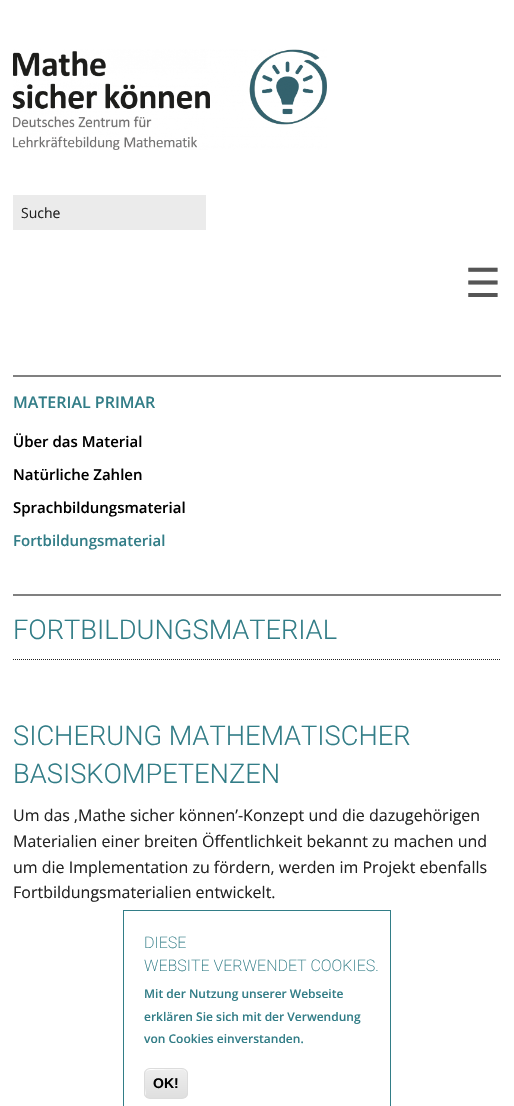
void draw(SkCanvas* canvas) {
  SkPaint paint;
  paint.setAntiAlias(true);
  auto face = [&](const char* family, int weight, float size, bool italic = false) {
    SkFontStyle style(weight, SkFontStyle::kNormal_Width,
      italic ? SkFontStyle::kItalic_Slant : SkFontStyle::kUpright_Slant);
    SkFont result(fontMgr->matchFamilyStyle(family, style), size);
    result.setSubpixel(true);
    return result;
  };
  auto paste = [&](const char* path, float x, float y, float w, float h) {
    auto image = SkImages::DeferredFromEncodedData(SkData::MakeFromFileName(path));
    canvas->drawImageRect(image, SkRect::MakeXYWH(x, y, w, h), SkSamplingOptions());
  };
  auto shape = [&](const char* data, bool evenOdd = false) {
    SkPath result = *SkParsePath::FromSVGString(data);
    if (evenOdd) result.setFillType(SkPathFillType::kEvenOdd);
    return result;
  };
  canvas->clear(0xffffffff);
  paste("img/1.png", 13, 49, 314, 101);
  {
    const struct { float x, y, w, h; SkColor color; } items[] = {
      {13, 195, 193, 35, 0xffebebeb},
      {13, 375, 488, 2, 0xff808080},
      {13, 594, 488, 2, 0xff808080},
    };
    for (auto [x, y, w, h, color] : items) {
      paint.setColor(color);
      canvas->drawRect(SkRect::MakeXYWH(x, y, w, h), paint);
    }
  }
  paint.setStroke(true);
  paint.setStrokeWidth(1);
  paint.setColor(0xff222222);
  paint.setPathEffect(SkDashPathEffect::Make({{1, 1}}, 0));
  canvas->drawPath(shape("M13 659.5H501"), paint);
  paint.setPathEffect(nullptr);
  paint.setColor(0xff327d87);
  canvas->drawRect(SkRect::MakeXYWH(123.5f, 910.5f, 267, 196), paint);
  canvas->save();
  canvas->clipPath(shape("M150 1068H182C185.5 1068 188 1070.5 188 1074V1093C188 1096.5 185.5 1099 182 1099H150C146.5 1099 144 1096.5 144 1093V1074C144 1070.5 146.5 1068 150 1068Z"), true);
  paint.setStroke(false);
  {
    const SkColor colors[] = {0xffededed, 0xffdfdfdf};
    const float stops[] = {0.05f, 1};
    const SkPoint ends[] = {{166, 1069}, {166, 1098}};
    paint.setShader(SkGradientShader::MakeLinear(ends, colors, stops, 2, SkTileMode::kClamp));
    paint.setAlpha(255);
  }
  canvas->drawRect(SkRect::MakeXYWH(144, 1069, 44, 29), paint);
  canvas->restore();
  paint.setShader(nullptr);
  paint.setColor(0xffffffff);
  canvas->drawPath(shape("M150 1070C152 1070 182 1069 184 1070C187 1072 187 1075 187 1078C187 1069 185 1069 177 1069H155C149 1069 145 1068 145 1076C145 1073 146 1070 150 1070ZM187 1093V1095ZM146 1096L145 1088C145 1090 144 1093 146 1096Z", true), paint);
  paint.setStroke(true);
  paint.setColor(0xffdcdcdc);
  canvas->drawRoundRect(SkRect::MakeXYWH(144.5f, 1068.5f, 43, 30), 5.5f, 5.5f, paint);
  auto f0 = face("Open Sans", 400, 14);
  paint.setStroke(false);
  paint.setColor(0xff222222);
  canvas->drawString("Suche", 21, 218, f0, paint);
  auto f1 = face("DejaVu Sans", 400, 40);
  paint.setColor(0xff555555);
  canvas->drawString("☰", 465, 297, f1, paint);
  auto f2 = face("Open Sans", 600, 16);
  paint.setColor(0xff327d87);
  canvas->drawString("MATERIAL PRIMAR", 13, 408, f2, paint);
  auto f3 = face("Open Sans", 600, 15);
  paint.setColor(0xff000000);
  {
    const struct { const char* s; float x, y; } items[] = {
      {"Über das Material", 13, 447},
      {"Natürliche Zahlen", 13, 480},
      {"Sprachbildungsmaterial", 13, 513},
    };
    for (auto [s, x, y] : items) {
      canvas->drawString(s, x, y, f3, paint);
    }
  }
  paint.setColor(0xff327d87);
  canvas->drawString("Fortbildungsmaterial", 13, 546, f3, paint);
  auto f4 = face("Roboto", 300, 27.25f);
  {
    const struct { const char* s; float x, y; } items[] = {
      {"FORTBILDUNGSMATERIAL", 13, 639},
      {"SICHERUNG MATHEMATISCHER", 13, 745},
      {"BASISKOMPETENZEN", 13, 783},
    };
    for (auto [s, x, y] : items) {
      canvas->drawString(s, x, y, f4, paint);
    }
  }
  auto f5 = face("Open Sans", 400, 16);
  paint.setColor(0xff222222);
  {
    const struct { const char* s; float x, y; } items[] = {
      {"Um das ‚Mathe sicher können’-Konzept und die dazugehörigen", 13, 821},
      {"Materialien einer breiten Öffentlichkeit bekannt zu machen und", 13, 847},
      {"um die Implementation zu fördern, werden im Projekt ebenfalls", 13, 873},
      {"Fortbildungsmaterialien entwickelt.", 13, 898},
    };
    for (auto [s, x, y] : items) {
      canvas->drawString(s, x, y, f5, paint);
    }
  }
  auto f6 = face("Roboto", 200, 16);
  paint.setColor(0xff327d87);
  canvas->drawString("DIESE", 144, 948, f6, paint);
  canvas->drawString("WEBSITE VERWENDET COOKIES.", 144, 971, f6, paint);
  auto f7 = face("Open Sans", 600, 12);
  {
    const struct { const char* s; float x, y; } items[] = {
      {"Mit der Nutzung unserer Webseite", 144, 998},
      {"erklären Sie sich mit der Verwendung", 144, 1021},
      {"von Cookies einverstanden.", 144, 1043},
    };
    for (auto [s, x, y] : items) {
      canvas->drawString(s, x, y, f7, paint);
    }
  }
  auto f8 = face("Liberation Sans", 700, 14);
  paint.setColor(0xff000000);
  canvas->drawString("OK!", 153, 1088, f8, paint);
}
